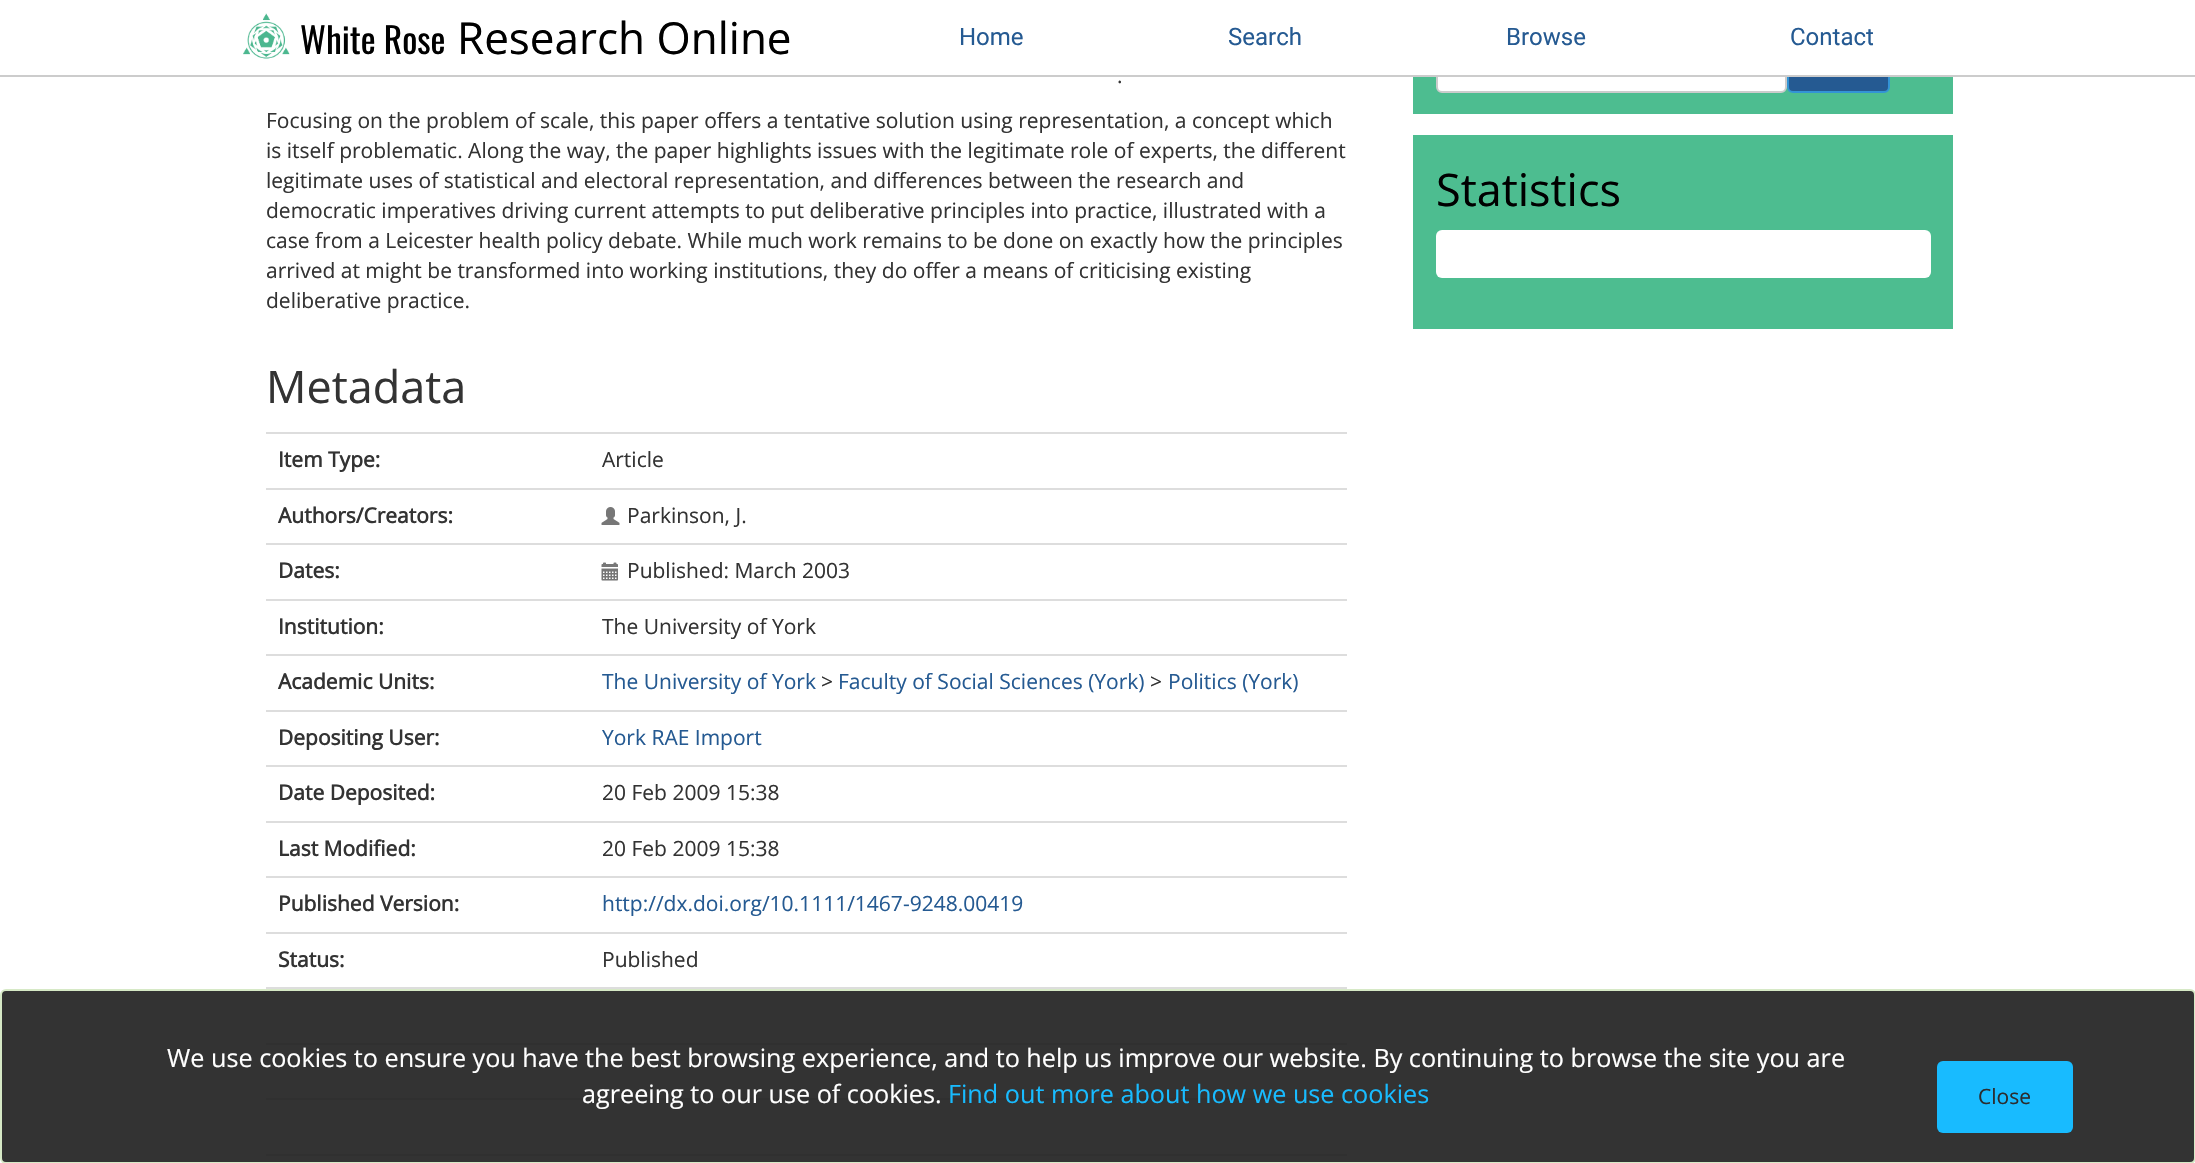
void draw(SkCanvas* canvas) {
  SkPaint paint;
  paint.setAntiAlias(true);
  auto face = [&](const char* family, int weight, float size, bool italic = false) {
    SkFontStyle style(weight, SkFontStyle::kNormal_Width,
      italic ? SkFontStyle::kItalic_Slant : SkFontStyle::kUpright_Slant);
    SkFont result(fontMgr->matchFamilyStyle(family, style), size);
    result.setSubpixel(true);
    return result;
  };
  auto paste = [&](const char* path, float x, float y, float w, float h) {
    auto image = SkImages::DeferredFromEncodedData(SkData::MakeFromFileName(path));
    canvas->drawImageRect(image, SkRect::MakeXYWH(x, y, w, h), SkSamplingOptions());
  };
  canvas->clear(0xffffffff);
  paint.setColor(0xff4dbd90);
  canvas->drawRect(SkRect::MakeXYWH(1413, 77, 540, 37), paint);
  paint.setColor(0xffffffff);
  canvas->drawRoundRect(SkRect::MakeXYWH(1437, 43, 349, 49), 5, 5, paint);
  paint.setStroke(true);
  paint.setStrokeWidth(2);
  paint.setColor(0xffcccccc);
  canvas->drawRoundRect(SkRect::MakeXYWH(1437, 43, 349, 49), 5, 5, paint);
  paint.setStroke(false);
  paint.setColor(0xff255a92);
  canvas->drawRoundRect(SkRect::MakeXYWH(1788, 43, 101, 49), 5, 5, paint);
  paint.setStroke(true);
  paint.setColor(0xff3394d5);
  canvas->drawRoundRect(SkRect::MakeXYWH(1788, 43, 101, 49), 5, 5, paint);
  paint.setStroke(false);
  paint.setColor(0xffffffff);
  canvas->drawRect(SkRect::MakeXYWH(1436, 42, 454, 33), paint);
  paint.setColor(0xffcccccc);
  canvas->drawRect(SkRect::MakeXYWH(0, 75, 2195, 2), paint);
  paste("img/1.png", 243, 13, 47, 46);
  paint.setColor(0xffdddddd);
  canvas->drawRect(SkRect::MakeXYWH(266, 432, 1081, 2), paint);
  canvas->drawRect(SkRect::MakeXYWH(266, 488, 1081, 2), paint);
  paste("img/2.png", 601, 507, 19, 18);
  canvas->drawRect(SkRect::MakeXYWH(266, 543, 1081, 2), paint);
  paste("img/3.png", 601, 562, 17, 19);
  {
    const struct { float x, y, w, h; SkColor color; } items[] = {
      {266, 599, 1081, 2, 0xffdddddd},
      {266, 654, 1081, 2, 0xffdddddd},
      {266, 710, 1081, 2, 0xffdddddd},
      {266, 765, 1081, 2, 0xffdddddd},
      {266, 821, 1081, 2, 0xffdddddd},
      {266, 876, 1081, 2, 0xffdddddd},
      {266, 932, 1081, 2, 0xffdddddd},
      {266, 987, 1081, 2, 0xffdddddd},
      {266, 1043, 1081, 2, 0xffdddddd},
      {266, 1098, 1081, 2, 0xffdddddd},
      {266, 1154, 1081, 2, 0xffdddddd},
      {1413, 135, 540, 194, 0xff4dbd90},
    };
    for (auto [x, y, w, h, color] : items) {
      paint.setColor(color);
      canvas->drawRect(SkRect::MakeXYWH(x, y, w, h), paint);
    }
  }
  paint.setColor(0xffffffff);
  canvas->drawRoundRect(SkRect::MakeXYWH(1436, 230, 495, 48), 6, 6, paint);
  paint.setColor(0xe61d1d1d);
  canvas->drawRoundRect(SkRect::MakeXYWH(1, 990, 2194, 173), 5, 5, paint);
  paint.setStroke(true);
  paint.setColor(0xffd6e9c6);
  canvas->drawRoundRect(SkRect::MakeXYWH(1, 990, 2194, 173), 5, 5, paint);
  paint.setStroke(false);
  paint.setColor(0xff18bbff);
  canvas->drawRoundRect(SkRect::MakeXYWH(1937, 1061, 136, 72), 6, 6, paint);
  auto f0 = face("Oswald", 400, 35.5f);
  paint.setColor(0xff000000);
  canvas->drawString("White Rose", 300, 54, f0, paint);
  auto f1 = face("Open Sans", 400, 44);
  canvas->drawString("Research Online", 457, 54, f1, paint);
  auto f2 = face("Roboto", 400, 24);
  paint.setColor(0xff255a92);
  {
    const struct { const char* s; float x, y; } items[] = {
      {"Home", 959, 45},
      {"Search", 1228, 45},
      {"Browse", 1506, 45},
      {"Contact", 1790, 45},
    };
    for (auto [s, x, y] : items) {
      canvas->drawString(s, x, y, f2, paint);
    }
  }
  auto f3 = face("Open Sans", 400, 21);
  paint.setColor(0xff333333);
  {
    const struct { const char* s; float x, y; } items[] = {
      {".", 1117, 83},
      {"Focusing on the problem of scale, this paper offers a tentative solution using representation, a concept which", 266, 128},
      {"is itself problematic. Along the way, the paper highlights issues with the legitimate role of experts, the different", 266, 158},
      {"legitimate uses of statistical and electoral representation, and differences between the research and", 266, 188},
      {"democratic imperatives driving current attempts to put deliberative principles into practice, illustrated with a", 266, 218},
      {"case from a Leicester health policy debate. While much work remains to be done on exactly how the principles", 266, 248},
      {"arrived at might be transformed into working institutions, they do offer a means of criticising existing", 266, 278},
      {"deliberative practice.", 266, 308},
    };
    for (auto [s, x, y] : items) {
      canvas->drawString(s, x, y, f3, paint);
    }
  }
  auto f4 = face("Open Sans", 400, 45);
  canvas->drawString("Metadata", 266, 403, f4, paint);
  auto f5 = face("Open Sans", 700, 21);
  canvas->drawString("Item Type:", 278, 467, f5, paint);
  canvas->drawString("Article", 602, 467, f3, paint);
  canvas->drawString("Authors/Creators:", 278, 523, f5, paint);
  canvas->drawString("Parkinson, J.", 627, 523, f3, paint);
  canvas->drawString("Dates:", 278, 578, f5, paint);
  canvas->drawString("Published: March 2003", 627, 578, f3, paint);
  canvas->drawString("Institution:", 278, 634, f5, paint);
  canvas->drawString("The University of York", 602, 634, f3, paint);
  canvas->drawString("Academic Units:", 278, 689, f5, paint);
  paint.setColor(0xff255a92);
  canvas->drawString("The University of York", 602, 689, f3, paint);
  paint.setColor(0xff333333);
  canvas->drawString(">", 821, 689, f3, paint);
  paint.setColor(0xff255a92);
  canvas->drawString("Faculty of Social Sciences (York)", 838, 689, f3, paint);
  paint.setColor(0xff333333);
  canvas->drawString(">", 1150, 689, f3, paint);
  paint.setColor(0xff255a92);
  canvas->drawString("Politics (York)", 1168, 689, f3, paint);
  paint.setColor(0xff333333);
  canvas->drawString("Depositing User:", 278, 745, f5, paint);
  paint.setColor(0xff255a92);
  canvas->drawString("York RAE Import", 602, 745, f3, paint);
  paint.setColor(0xff333333);
  canvas->drawString("Date Deposited:", 278, 800, f5, paint);
  canvas->drawString("20 Feb 2009 15:38", 602, 800, f3, paint);
  canvas->drawString("Last Modified:", 278, 856, f5, paint);
  canvas->drawString("20 Feb 2009 15:38", 602, 856, f3, paint);
  canvas->drawString("Published Version:", 278, 911, f5, paint);
  paint.setColor(0xff255a92);
  canvas->drawString("http://dx.doi.org/10.1111/1467-9248.00419", 602, 911, f3, paint);
  paint.setColor(0xff333333);
  canvas->drawString("Status:", 278, 967, f5, paint);
  canvas->drawString("Published", 602, 967, f3, paint);
  paint.setColor(0xff000000);
  canvas->drawString("Statistics", 1436, 206, f4, paint);
  auto f6 = face("Open Sans", 400, 25.2f);
  paint.setColor(0xffffffff);
  canvas->drawString("We use cookies to ensure you have the best browsing experience, and to help us improve our website. By continuing to browse the site you are", 167, 1067, f6, paint);
  canvas->drawString("agreeing to our use of cookies.", 582, 1103, f6, paint);
  paint.setColor(0xff18bbff);
  canvas->drawString("Find out more about how we use cookies", 948, 1103, f6, paint);
  paint.setColor(0xff2b2c2e);
  canvas->drawString("Close", 1978, 1104, f3, paint);
}
